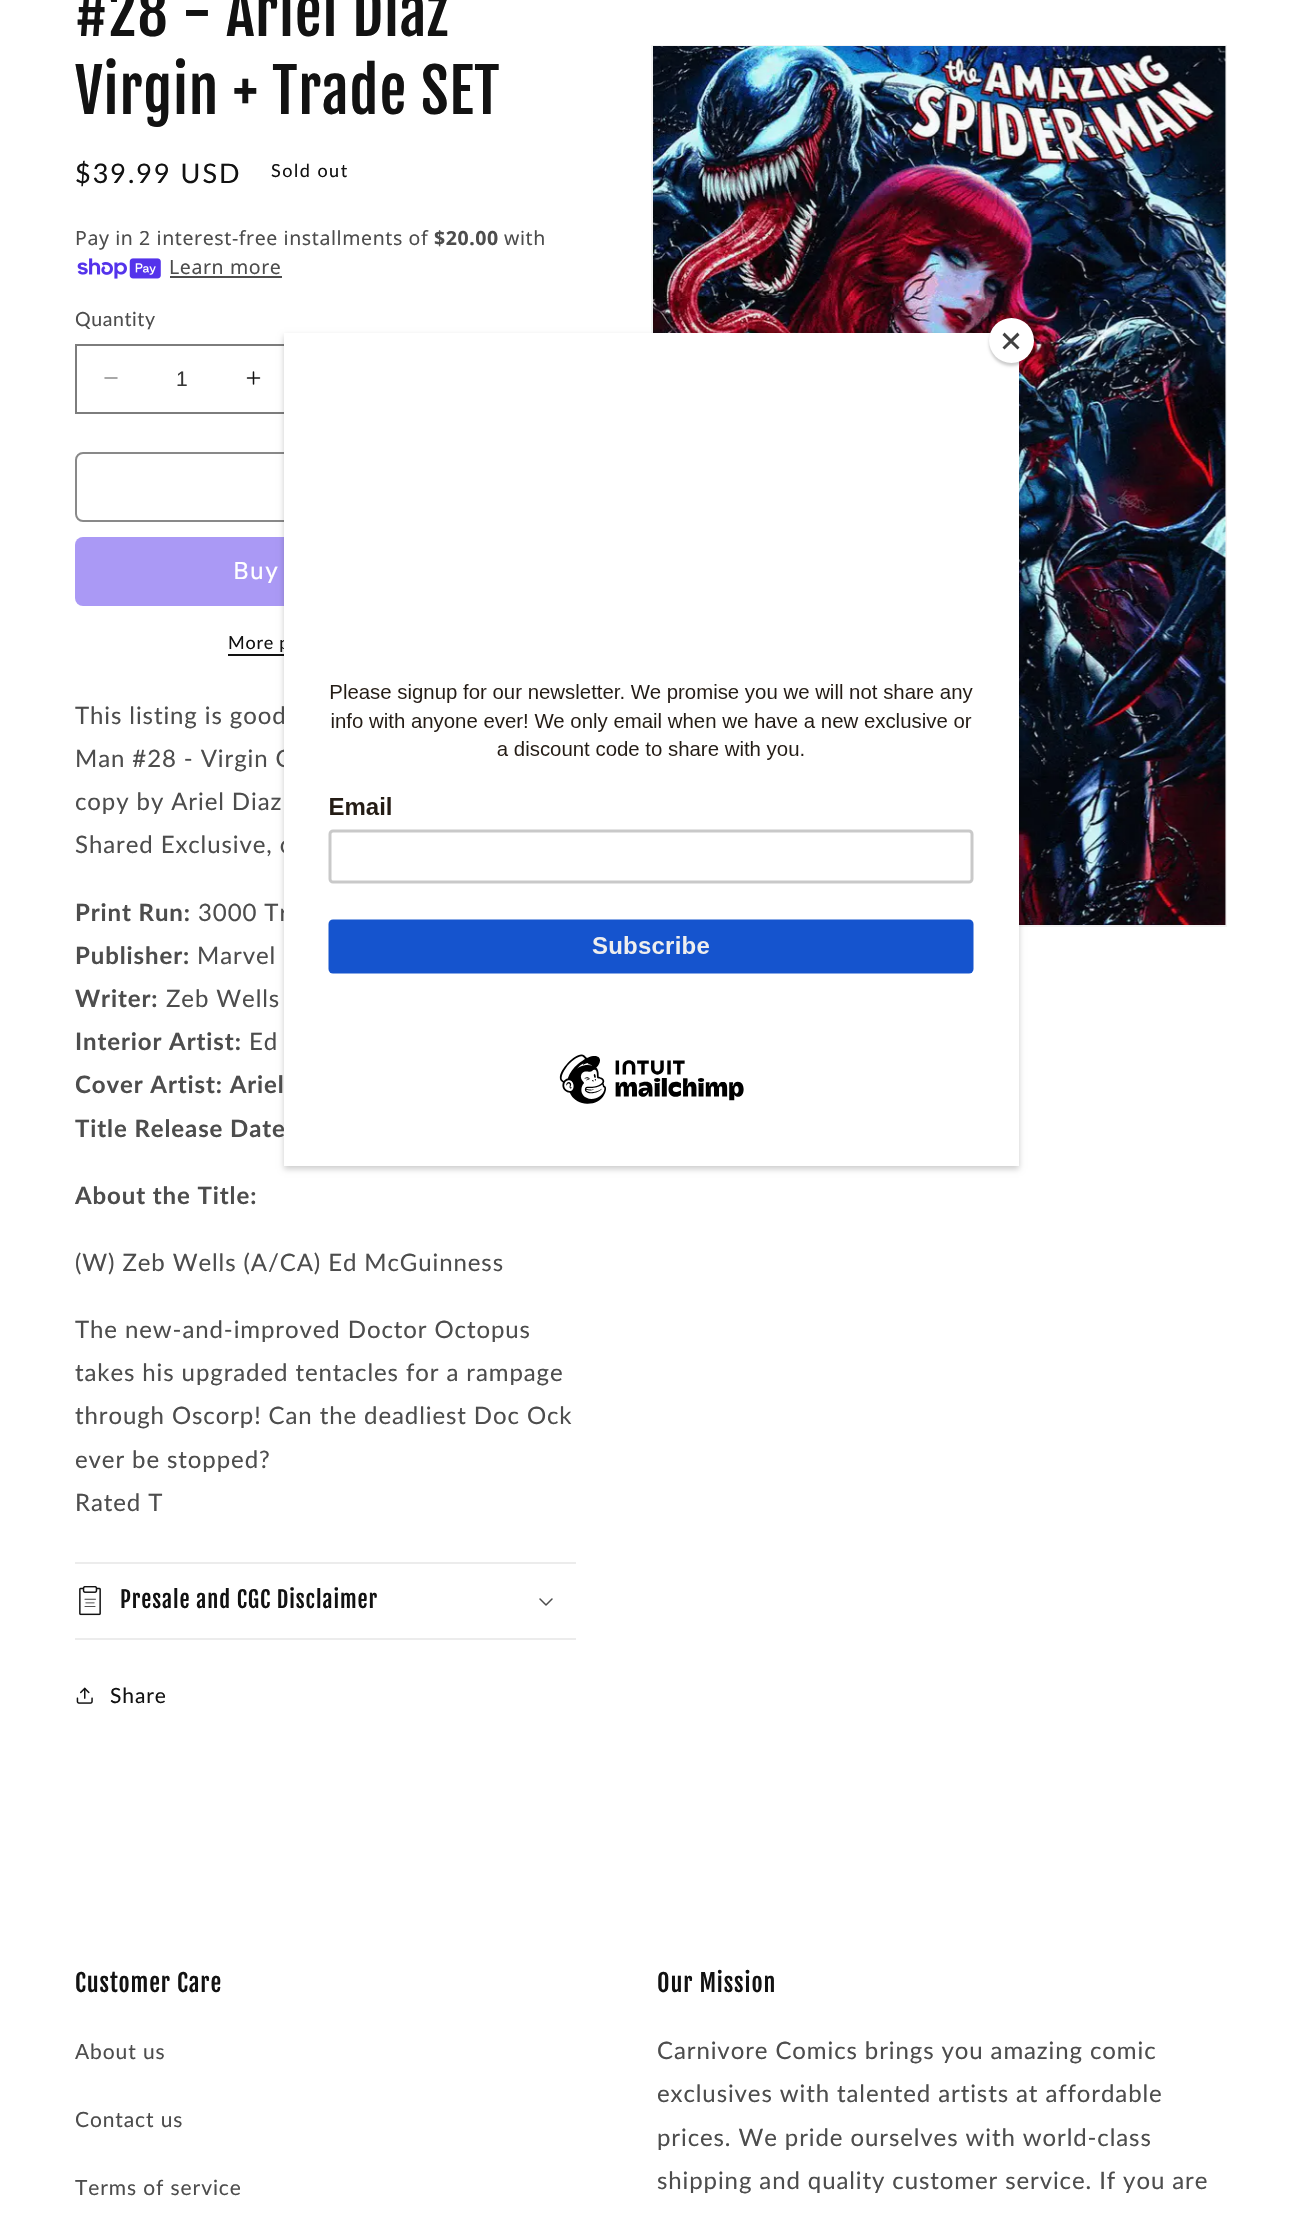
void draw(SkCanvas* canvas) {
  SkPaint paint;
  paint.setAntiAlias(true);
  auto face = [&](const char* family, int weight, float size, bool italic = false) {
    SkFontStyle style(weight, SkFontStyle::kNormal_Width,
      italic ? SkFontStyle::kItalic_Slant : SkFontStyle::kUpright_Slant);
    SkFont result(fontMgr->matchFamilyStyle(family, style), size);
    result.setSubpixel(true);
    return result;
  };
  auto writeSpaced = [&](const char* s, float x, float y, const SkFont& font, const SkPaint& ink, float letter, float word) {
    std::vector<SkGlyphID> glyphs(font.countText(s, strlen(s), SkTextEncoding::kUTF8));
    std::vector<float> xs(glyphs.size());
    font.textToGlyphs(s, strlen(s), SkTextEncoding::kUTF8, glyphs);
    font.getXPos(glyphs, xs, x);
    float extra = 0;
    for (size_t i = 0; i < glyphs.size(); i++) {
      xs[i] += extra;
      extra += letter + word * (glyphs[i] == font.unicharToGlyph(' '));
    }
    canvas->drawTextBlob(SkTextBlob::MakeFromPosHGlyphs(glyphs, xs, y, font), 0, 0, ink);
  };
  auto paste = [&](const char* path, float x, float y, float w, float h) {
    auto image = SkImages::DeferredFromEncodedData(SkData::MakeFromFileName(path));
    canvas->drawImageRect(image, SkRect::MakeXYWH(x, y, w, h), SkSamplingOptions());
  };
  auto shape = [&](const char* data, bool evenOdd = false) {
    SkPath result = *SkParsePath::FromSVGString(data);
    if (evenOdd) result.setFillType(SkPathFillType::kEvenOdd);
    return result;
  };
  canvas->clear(0xffffffff);
  paste("img/1.png", 77, 258, 84, 21);
  paint.setColor(0xff4d4d4d);
  canvas->drawRect(SkRect::MakeXYWH(170, 276, 112, 2), paint);
  paste("img/2.png", 104, 377, 14, 2);
  paste("img/3.png", 246, 371, 15, 14);
  paint.setStroke(true);
  paint.setStrokeWidth(2);
  paint.setColor(0xff7d7d7d);
  canvas->drawRect(SkRect::MakeXYWH(76, 345, 211, 68), paint);
  paint.setColor(0xff898989);
  canvas->drawRoundRect(SkRect::MakeXYWH(76, 453, 499, 68), 7, 7, paint);
  paint.setStroke(false);
  paint.setColor(0xffaa99f5);
  canvas->drawRoundRect(SkRect::MakeXYWH(75, 537, 501, 69), 8, 8, paint);
  {
    const struct { float x, y, w, h; SkColor color; } items[] = {
      {228, 654, 56, 2, 0xff121212},
      {75, 1562, 501, 2, 0xffececec},
      {75, 1638, 501, 2, 0xffececec},
    };
    for (auto [x, y, w, h, color] : items) {
      paint.setColor(color);
      canvas->drawRect(SkRect::MakeXYWH(x, y, w, h), paint);
    }
  }
  paste("img/4.png", 79, 1586, 22, 30);
  paste("img/5.png", 539, 1598, 14, 8);
  paste("img/6.png", 76, 1687, 17, 17);
  paint.setStroke(true);
  paint.setColor(0xfff3f3f3);
  canvas->drawRect(SkRect::MakeXYWH(652, 46, 574, 880), paint);
  paste("img/7.png", 653, 46, 573, 879);
  paint.setStroke(false);
  paint.setColor(0x33000000);
  paint.setMaskFilter(SkMaskFilter::MakeBlur(kNormal_SkBlurStyle, 3));
  canvas->drawRect(SkRect::MakeXYWH(284, 336, 735, 833), paint);
  paint.setMaskFilter(nullptr);
  auto f0 = face("Fjalla One", 400, 60);
  paint.setColor(0xff121212);
  writeSpaced("#28 - Ariel Diaz", 75, 36, f0, paint, 0.9f, 0);
  writeSpaced("Virgin + Trade SET", 75, 114, f0, paint, 0.9f, 0);
  auto f1 = face("Lato", 400, 27);
  writeSpaced("$39.99 USD", 75, 183, f1, paint, 2, 0);
  auto f2 = face("Lato", 400, 18);
  writeSpaced("Sold out", 271, 177, f2, paint, 1.5f, 0);
  auto f3 = face("Noto Sans", 400, 19.5f);
  paint.setColor(0xff4d4d4d);
  writeSpaced("Pay in 2 interest-free installments of", 75, 245, f3, paint, 0.6f, 0);
  auto f4 = face("Noto Sans", 700, 19.5f);
  writeSpaced("$20.00", 434, 245, f4, paint, 0.6f, 0);
  writeSpaced("with", 504, 245, f3, paint, 0.6f, 0);
  writeSpaced("Learn more", 169, 274, f3, paint, 0.6f, 0);
  auto f5 = face("Lato", 400, 19.5f);
  writeSpaced("Quantity", 75, 326, f5, paint, 0.6f, 0);
  auto f6 = face("Liberation Sans", 400, 21);
  paint.setColor(0xff363636);
  canvas->drawString("1", 176, 386, f6, paint);
  auto f7 = face("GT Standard", 400, 24);
  paint.setColor(0xffffffff);
  writeSpaced("Buy", 233, 579, f7, paint, 0.9f, 0);
  paint.setColor(0xff121212);
  writeSpaced("More p", 228, 649, f2, paint, 0.75f, 0);
  auto f8 = face("Lato", 400, 24);
  paint.setColor(0xff4d4d4d);
  {
    const struct { const char* s; float x, y; } items[] = {
      {"This listing is good", 75, 724},
      {"Man #28 - Virgin C", 75, 767},
      {"copy by Ariel Diaz", 75, 810},
      {"Shared Exclusive, c", 75, 853},
    };
    for (auto [s, x, y] : items) {
      writeSpaced(s, x, y, f8, paint, 0.9f, 0);
    }
  }
  auto f9 = face("Lato", 700, 24);
  writeSpaced("Print Run:", 75, 921, f9, paint, 0.9f, 0);
  writeSpaced("3000 Tr", 198, 921, f8, paint, 0.9f, 0);
  writeSpaced("Publisher:", 75, 964, f9, paint, 0.9f, 0);
  writeSpaced("Marvel", 197, 964, f8, paint, 0.9f, 0);
  writeSpaced("Writer:", 75, 1007, f9, paint, 0.9f, 0);
  writeSpaced("Zeb Wells", 166, 1007, f8, paint, 0.9f, 0);
  writeSpaced("Interior Artist:", 75, 1050, f9, paint, 0.9f, 0);
  writeSpaced("Ed", 249, 1050, f8, paint, 0.9f, 0);
  {
    const struct { const char* s; float x, y; } items[] = {
      {"Cover Artist: Ariel", 75, 1093},
      {"Title Release Date", 75, 1137},
      {"About the Title:", 75, 1204},
    };
    for (auto [s, x, y] : items) {
      writeSpaced(s, x, y, f9, paint, 0.9f, 0);
    }
  }
  {
    const struct { const char* s; float x, y; } items[] = {
      {"(W) Zeb Wells (A/CA) Ed McGuinness", 75, 1271},
      {"The new-and-improved Doctor Octopus", 75, 1338},
      {"takes his upgraded tentacles for a rampage", 75, 1381},
      {"through Oscorp! Can the deadliest Doc Ock", 75, 1424},
      {"ever be stopped?", 75, 1468},
      {"Rated T", 75, 1511},
    };
    for (auto [s, x, y] : items) {
      writeSpaced(s, x, y, f8, paint, 0.9f, 0);
    }
  }
  auto f10 = face("Fjalla One", 400, 22.5f);
  paint.setColor(0xff121212);
  writeSpaced("Presale and CGC Disclaimer", 120, 1608, f10, paint, 0.9f, 0);
  auto f11 = face("Lato", 400, 21);
  writeSpaced("Share", 110, 1703, f11, paint, 0.9f, 0);
  paste("img/8.png", 284, 333, 735, 833);
  paint.setColor(0x33000000);
  paint.setMaskFilter(SkMaskFilter::MakeBlur(kNormal_SkBlurStyle, 1.5f));
  canvas->drawRoundRect(SkRect::MakeXYWH(989, 321, 45, 45), 22.5f, 22.5f, paint);
  paint.setMaskFilter(nullptr);
  paint.setColor(0xffffffff);
  canvas->drawCircle(1011.5f, 340.5f, 22.5f, paint);
  paint.setColor(0xff414141);
  canvas->drawPath(shape("M1017.5 332.5L1019.5 335L1004.5 349.5L1002.5 347.5Z"), paint);
  canvas->drawPath(shape("M1002.5 335L1004.5 332.5L1019.5 347.5L1017.5 349.5Z"), paint);
  auto f12 = face("Fjalla One", 400, 24);
  paint.setColor(0xff121212);
  writeSpaced("Customer Care", 75, 1992, f12, paint, 0.9f, 0);
  paint.setColor(0xff4d4d4d);
  {
    const struct { const char* s; float x, y; } items[] = {
      {"About us", 75, 2059},
      {"Contact us", 75, 2127},
      {"Terms of service", 75, 2195},
    };
    for (auto [s, x, y] : items) {
      writeSpaced(s, x, y, f11, paint, 0.9f, 0);
    }
  }
  paint.setColor(0xff121212);
  writeSpaced("Our Mission", 657, 1992, f12, paint, 0.9f, 0);
  paint.setColor(0xff4d4d4d);
  {
    const struct { const char* s; float x, y; } items[] = {
      {"Carnivore Comics brings you amazing comic", 657, 2059},
      {"exclusives with talented artists at affordable", 657, 2102},
      {"prices. We pride ourselves with world-class", 657, 2146},
      {"shipping and quality customer service. If you are", 657, 2189},
    };
    for (auto [s, x, y] : items) {
      writeSpaced(s, x, y, f8, paint, 0.9f, 0);
    }
  }
}
